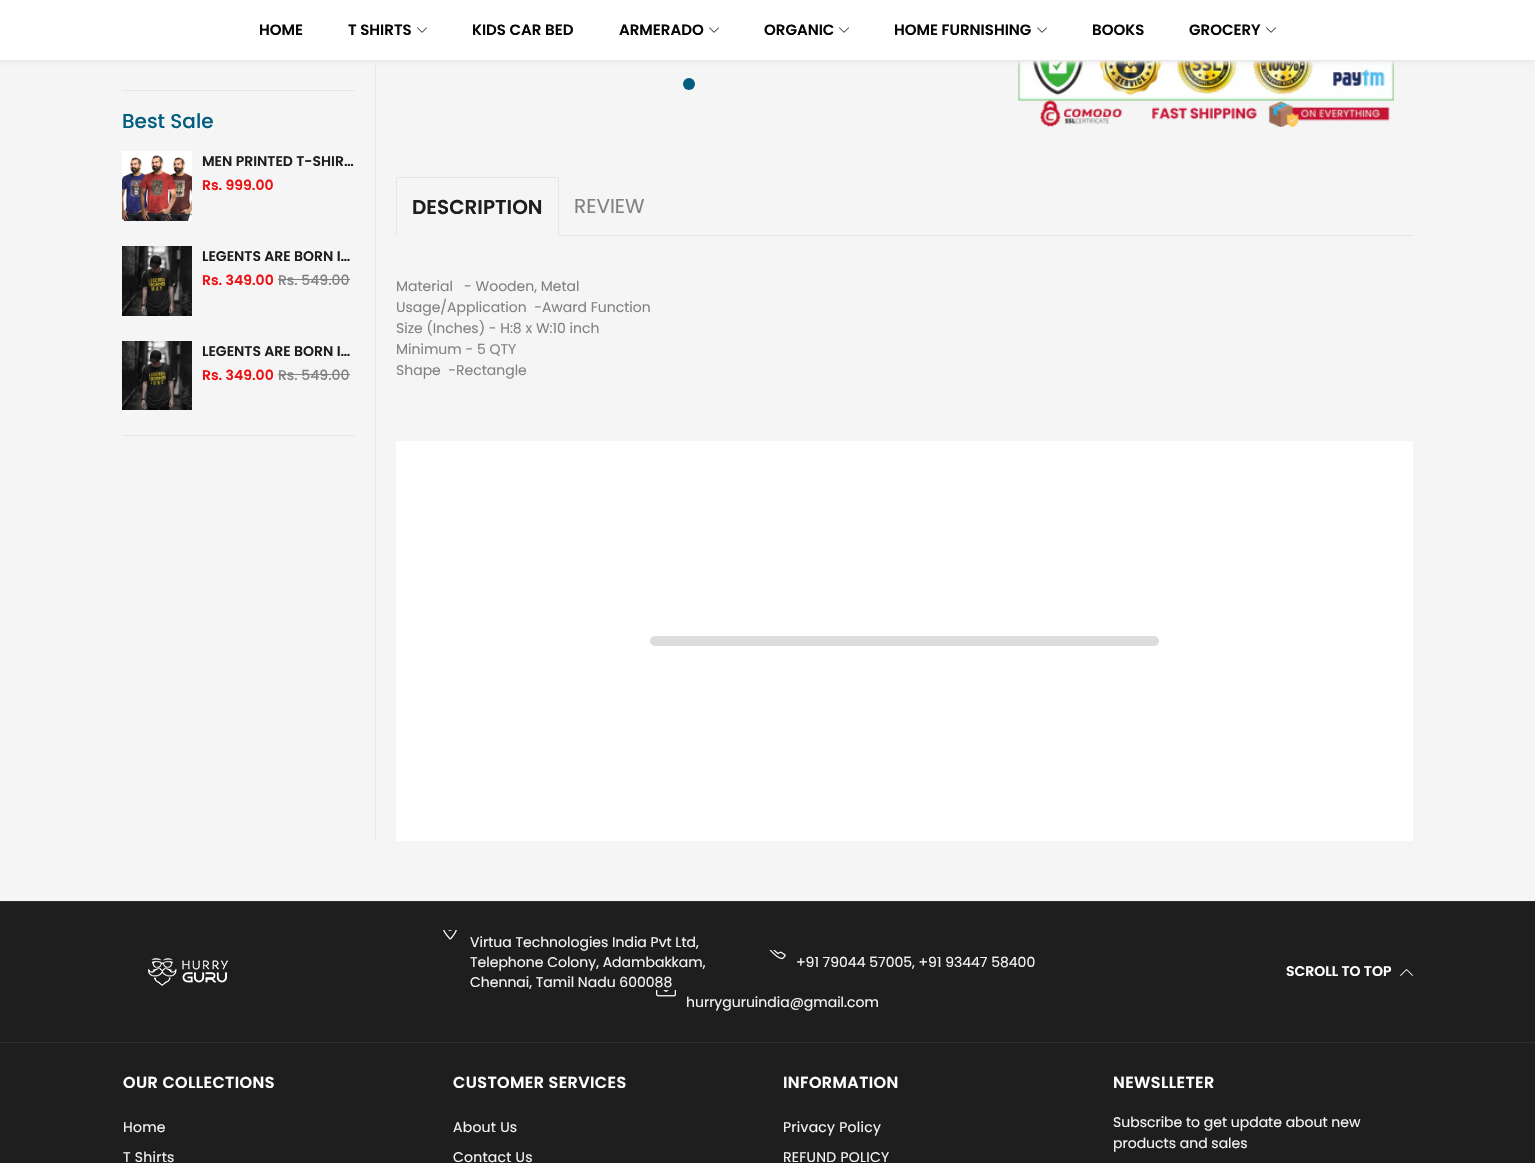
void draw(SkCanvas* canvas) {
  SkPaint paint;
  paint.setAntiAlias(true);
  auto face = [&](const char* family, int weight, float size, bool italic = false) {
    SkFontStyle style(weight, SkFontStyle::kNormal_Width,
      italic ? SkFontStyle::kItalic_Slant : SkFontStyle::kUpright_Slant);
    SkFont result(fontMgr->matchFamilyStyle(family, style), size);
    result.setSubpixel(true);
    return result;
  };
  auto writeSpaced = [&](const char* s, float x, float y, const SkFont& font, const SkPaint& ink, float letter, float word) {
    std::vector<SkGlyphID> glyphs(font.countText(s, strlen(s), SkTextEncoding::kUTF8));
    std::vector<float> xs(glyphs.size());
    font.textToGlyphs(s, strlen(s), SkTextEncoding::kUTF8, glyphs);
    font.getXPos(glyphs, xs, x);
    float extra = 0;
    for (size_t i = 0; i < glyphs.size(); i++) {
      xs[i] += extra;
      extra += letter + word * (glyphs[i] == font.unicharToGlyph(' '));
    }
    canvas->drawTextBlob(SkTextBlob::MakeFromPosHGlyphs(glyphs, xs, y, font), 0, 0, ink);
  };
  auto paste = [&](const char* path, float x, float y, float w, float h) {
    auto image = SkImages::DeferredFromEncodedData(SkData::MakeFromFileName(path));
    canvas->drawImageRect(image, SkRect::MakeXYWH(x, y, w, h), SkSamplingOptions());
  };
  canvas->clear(0xfff5f5f5);
  paint.setColor(0xffe6e6e6);
  canvas->drawRect(SkRect::MakeXYWH(375, 61, 1, 780), paint);
  paste("img/5.png", 1018, 61, 376, 66);
  paint.setColor(0xffededed);
  paint.setMaskFilter(SkMaskFilter::MakeBlur(kNormal_SkBlurStyle, 2));
  canvas->drawRect(SkRect::MakeXYWH(0, 2, 1535, 61), paint);
  paint.setMaskFilter(nullptr);
  paint.setColor(0xffffffff);
  canvas->drawRect(SkRect::MakeXYWH(0, 0, 1535, 60), paint);
  paint.setColor(0xffe7e7e8);
  canvas->drawRect(SkRect::MakeXYWH(0, 60, 1535, 1), paint);
  paste("img/1.png", 417, 27, 10, 6);
  paste("img/1.png", 709, 27, 10, 6);
  paste("img/1.png", 839, 27, 10, 6);
  paste("img/1.png", 1037, 27, 10, 6);
  paste("img/1.png", 1266, 27, 10, 6);
  paint.setColor(0xffe6e6e6);
  canvas->drawRect(SkRect::MakeXYWH(122, 90, 233, 1), paint);
  canvas->drawRect(SkRect::MakeXYWH(122, 435, 233, 1), paint);
  paste("img/2.png", 122, 151, 70, 70);
  paste("img/3.png", 122, 246, 70, 70);
  paint.setColor(0xff828282);
  canvas->drawRect(SkRect::MakeXYWH(278, 279, 72, 1), paint);
  paste("img/4.png", 122, 341, 70, 69);
  canvas->drawRect(SkRect::MakeXYWH(278, 374, 72, 1), paint);
  paint.setColor(0xff015e80);
  canvas->drawCircle(689, 84, 6, paint);
  {
    const struct { float x, y, w, h; SkColor color; } items[] = {
      {396, 177, 163, 1, 0xffe6e6e6},
      {558, 177, 1, 59, 0xffe6e6e6},
      {396, 177, 1, 59, 0xffe6e6e6},
      {396, 235, 1017, 1, 0xffe6e6e6},
      {397, 235, 161, 1, 0xfff5f5f5},
      {396, 441, 1017, 400, 0xffffffff},
    };
    for (auto [x, y, w, h, color] : items) {
      paint.setColor(color);
      canvas->drawRect(SkRect::MakeXYWH(x, y, w, h), paint);
    }
  }
  paint.setColor(0xffdddddd);
  canvas->drawRoundRect(SkRect::MakeXYWH(650, 636, 509, 10), 5, 5, paint);
  paint.setColor(0xff1e1e1e);
  canvas->drawRect(SkRect::MakeXYWH(0, 902, 1535, 261), paint);
  paint.setColor(0xff2d2d2d);
  canvas->drawRect(SkRect::MakeXYWH(0, 901, 1535, 1), paint);
  paste("img/6.png", 148, 958, 80, 28);
  paste("img/7.png", 443, 930, 14, 10);
  paste("img/8.png", 769, 950, 17, 10);
  paste("img/9.png", 656, 990, 20, 7);
  paste("img/10.png", 1400, 969, 13, 7);
  canvas->drawRect(SkRect::MakeXYWH(0, 1042, 1535, 1), paint);
  auto f0 = face("Poppins", 600, 15);
  paint.setColor(0xff060606);
  {
    const struct { const char* s; float x, y; } items[] = {
      {"HOME", 259, 35},
      {"T SHIRTS", 348, 35},
      {"KIDS CAR BED", 472, 35},
      {"ARMERADO", 619, 35},
      {"ORGANIC", 764, 35},
      {"HOME FURNISHING", 894, 35},
      {"BOOKS", 1092, 35},
      {"GROCERY", 1189, 35},
    };
    for (auto [s, x, y] : items) {
      canvas->drawString(s, x, y, f0, paint);
    }
  }
  auto f1 = face("Poppins", 500, 20);
  paint.setColor(0xff015e80);
  canvas->drawString("Best Sale", 122, 128, f1, paint);
  auto f2 = face("Poppins", 600, 14);
  paint.setColor(0xff1e1e1e);
  canvas->drawString("MEN PRINTED T-SHIR…", 202, 166, f2, paint);
  paint.setColor(0xffea1313);
  canvas->drawString("Rs. 999.00", 202, 190, f2, paint);
  paint.setColor(0xff1e1e1e);
  canvas->drawString("LEGENTS ARE BORN I…", 202, 261, f2, paint);
  paint.setColor(0xffea1313);
  canvas->drawString("Rs. 349.00", 202, 285, f2, paint);
  auto f3 = face("Poppins", 500, 14);
  paint.setColor(0xff828282);
  canvas->drawString("Rs. 549.00", 278, 285, f3, paint);
  paint.setColor(0xff1e1e1e);
  canvas->drawString("LEGENTS ARE BORN I…", 202, 356, f2, paint);
  paint.setColor(0xffea1313);
  canvas->drawString("Rs. 349.00", 202, 380, f2, paint);
  paint.setColor(0xff828282);
  canvas->drawString("Rs. 549.00", 278, 380, f3, paint);
  auto f4 = face("Poppins", 600, 20);
  paint.setColor(0xff1e1e1e);
  canvas->drawString("DESCRIPTION", 412, 214, f4, paint);
  auto f5 = face("Poppins", 400, 20);
  paint.setColor(0xff828282);
  canvas->drawString("REVIEW", 574, 213, f5, paint);
  auto f6 = face("Poppins", 400, 14);
  {
    const struct { const char* s; float x, y; } items[] = {
      {"Material   - Wooden, Metal", 396, 291},
      {"Usage/Application  -Award Function", 396, 312},
      {"Size (Inches) - H:8 x W:10 inch", 396, 333},
      {"Minimum - 5 QTY", 396, 354},
      {"Shape  -Rectangle", 396, 375},
    };
    for (auto [s, x, y] : items) {
      canvas->drawString(s, x, y, f6, paint);
    }
  }
  paint.setColor(0xfff5f5f5);
  {
    const struct { const char* s; float x, y; } items[] = {
      {"Virtua Technologies India Pvt Ltd,", 470, 947},
      {"Telephone Colony, Adambakkam,", 470, 967},
      {"Chennai, Tamil Nadu 600088", 470, 987},
      {"+91 79044 57005, +91 93447 58400", 796, 967},
      {"hurryguruindia@gmail.com", 686, 1007},
    };
    for (auto [s, x, y] : items) {
      canvas->drawString(s, x, y, f6, paint);
    }
  }
  paint.setColor(0xffffffff);
  canvas->drawString("SCROLL TO TOP", 1286, 976, f2, paint);
  auto f7 = face("Poppins", 600, 16);
  writeSpaced("OUR COLLECTIONS", 123, 1088, f7, paint, 0.4f, 0);
  paint.setColor(0xfff5f5f5);
  writeSpaced("Home", 123, 1132, f6, paint, 0.25f, 0);
  writeSpaced("T Shirts", 123, 1162, f6, paint, 0.25f, 0);
  paint.setColor(0xffffffff);
  writeSpaced("CUSTOMER SERVICES", 453, 1088, f7, paint, 0.4f, 0);
  paint.setColor(0xfff5f5f5);
  writeSpaced("About Us", 453, 1132, f6, paint, 0.25f, 0);
  writeSpaced("Contact Us", 453, 1162, f6, paint, 0.25f, 0);
  paint.setColor(0xffffffff);
  writeSpaced("INFORMATION", 783, 1088, f7, paint, 0.4f, 0);
  paint.setColor(0xfff5f5f5);
  writeSpaced("Privacy Policy", 783, 1132, f6, paint, 0.25f, 0);
  writeSpaced("REFUND POLICY", 783, 1162, f6, paint, 0.25f, 0);
  paint.setColor(0xffffffff);
  writeSpaced("NEWSLLETER", 1113, 1088, f7, paint, 0.4f, 0);
  paint.setColor(0xfff5f5f5);
  canvas->drawString("Subscribe to get update about new", 1113, 1127, f6, paint);
  canvas->drawString("products and sales", 1113, 1148, f6, paint);
}
